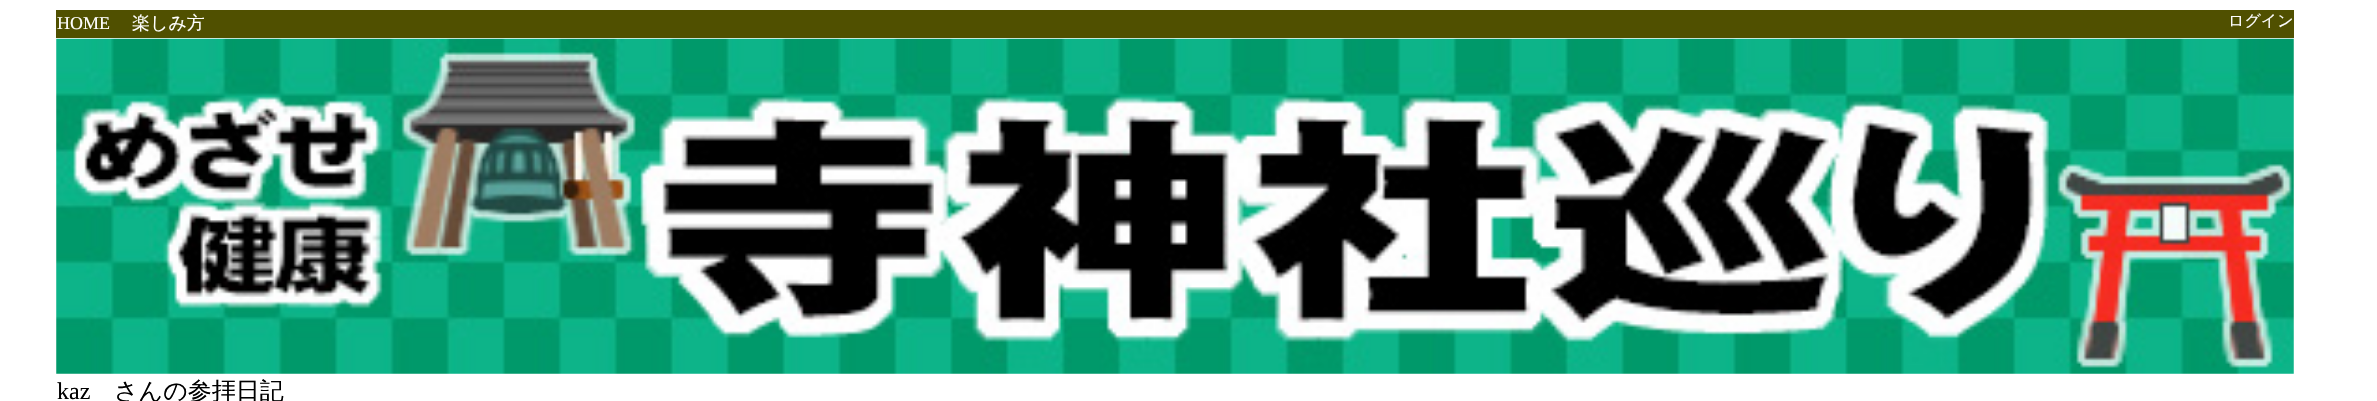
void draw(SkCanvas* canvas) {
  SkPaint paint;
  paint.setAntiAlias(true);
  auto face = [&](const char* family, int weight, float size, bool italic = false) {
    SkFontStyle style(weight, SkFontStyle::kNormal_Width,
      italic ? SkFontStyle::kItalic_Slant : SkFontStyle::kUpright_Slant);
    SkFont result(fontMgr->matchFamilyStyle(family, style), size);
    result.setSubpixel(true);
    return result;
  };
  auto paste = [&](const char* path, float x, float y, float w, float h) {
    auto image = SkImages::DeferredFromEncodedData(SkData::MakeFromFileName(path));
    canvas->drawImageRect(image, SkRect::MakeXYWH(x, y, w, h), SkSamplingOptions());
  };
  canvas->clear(0xffffffff);
  paint.setColor(0xff505000);
  canvas->drawRect(SkRect::MakeXYWH(56, 10, 2238, 28), paint);
  paste("img/1.png", 56, 38, 2238, 336);
  auto f0 = face("Liberation Serif", 400, 18);
  paint.setColor(0xffffffff);
  canvas->drawString("HOME", 57, 29, f0, paint);
  auto f1 = face("WenQuanYi Zen Hei", 500, 18);
  canvas->drawString("楽しみ方", 132, 29, f1, paint);
  auto f2 = face("WenQuanYi Zen Hei", 500, 16);
  canvas->drawString("ログイン", 2228, 26, f2, paint);
  auto f3 = face("Liberation Serif", 400, 24);
  paint.setColor(0xff000000);
  canvas->drawString("kaz", 57, 399, f3, paint);
  auto f4 = face("WenQuanYi Zen Hei", 500, 24);
  canvas->drawString("さんの参拝日記", 114, 399, f4, paint);
}
